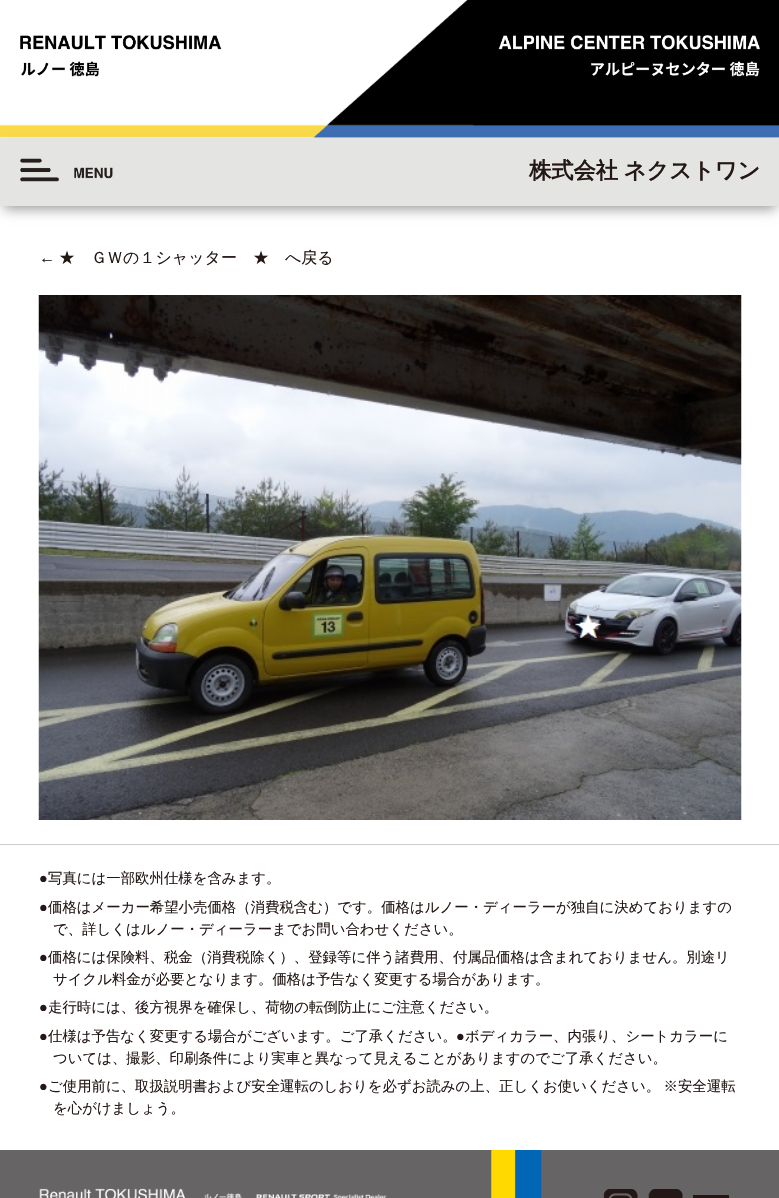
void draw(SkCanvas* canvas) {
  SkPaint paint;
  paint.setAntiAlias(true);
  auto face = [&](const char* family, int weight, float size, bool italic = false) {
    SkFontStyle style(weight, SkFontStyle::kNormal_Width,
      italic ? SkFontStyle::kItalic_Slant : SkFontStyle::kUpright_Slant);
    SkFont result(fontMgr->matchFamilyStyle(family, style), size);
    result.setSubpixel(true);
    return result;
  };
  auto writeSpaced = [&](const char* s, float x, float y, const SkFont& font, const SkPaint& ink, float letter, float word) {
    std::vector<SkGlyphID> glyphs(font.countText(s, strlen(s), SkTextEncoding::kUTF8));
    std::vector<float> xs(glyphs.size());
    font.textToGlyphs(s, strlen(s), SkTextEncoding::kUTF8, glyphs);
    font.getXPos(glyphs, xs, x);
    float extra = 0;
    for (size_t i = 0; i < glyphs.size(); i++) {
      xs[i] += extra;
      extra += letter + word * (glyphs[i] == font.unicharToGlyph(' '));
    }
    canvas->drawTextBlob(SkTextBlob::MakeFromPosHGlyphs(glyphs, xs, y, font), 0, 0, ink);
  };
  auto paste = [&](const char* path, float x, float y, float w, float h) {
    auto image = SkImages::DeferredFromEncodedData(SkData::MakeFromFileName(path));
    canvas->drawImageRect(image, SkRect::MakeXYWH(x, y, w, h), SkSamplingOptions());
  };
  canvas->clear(0xffffffff);
  paste("img/1.png", 0, 0, 779, 138);
  paste("img/2.png", 20, 35, 202, 42);
  paste("img/3.png", 498, 35, 262, 42);
  paint.setColor(0x66000000);
  paint.setMaskFilter(SkMaskFilter::MakeBlur(kNormal_SkBlurStyle, 6));
  canvas->drawRect(SkRect::MakeXYWH(4, 148, 772, 61), paint);
  paint.setMaskFilter(nullptr);
  paint.setColor(0xffe4e4e3);
  canvas->drawRect(SkRect::MakeXYWH(0, 138, 779, 68), paint);
  paste("img/4.png", 20, 158, 93, 24);
  paint.setColor(0xffcccccc);
  canvas->drawRect(SkRect::MakeXYWH(0, 844, 779, 1), paint);
  paste("img/5.png", 38, 295, 704, 525);
  paint.setColor(0xff666464);
  canvas->drawRect(SkRect::MakeXYWH(0, 1150, 779, 48), paint);
  paste("img/6.png", 491, 1150, 51, 48);
  paste("img/7.png", 39, 1188, 348, 10);
  paste("img/8.png", 603, 1189, 35, 9);
  paste("img/9.png", 648, 1189, 35, 9);
  paint.setColor(0xff231815);
  canvas->drawRect(SkRect::MakeXYWH(693, 1195, 36, 3), paint);
  auto f0 = face("WenQuanYi Zen Hei", 700, 22.25f);
  writeSpaced("株式会社 ネクストワン", 529, 178, f0, paint, 0, -1);
  auto f1 = face("Liberation Serif", 400, 16);
  canvas->drawString("←", 39, 263, f1, paint);
  auto f2 = face("WenQuanYi Zen Hei", 500, 16);
  canvas->drawString("★　ＧＷの１シャッター　★　へ戻る", 59, 263, f2, paint);
  auto f3 = face("Liberation Serif", 400, 14.4f);
  canvas->drawString("●", 39, 883, f3, paint);
  auto f4 = face("WenQuanYi Zen Hei", 500, 14.4f);
  canvas->drawString("写真には一部欧州仕様を含みます。", 48, 883, f4, paint);
  canvas->drawString("●", 39, 912, f3, paint);
  canvas->drawString("価格はメーカー希望小売価格（消費税含む）です。価格はルノー・ディーラーが独自に決めておりますの", 48, 912, f4, paint);
  canvas->drawString("で、詳しくはルノー・ディーラーまでお問い合わせください。", 53, 934, f4, paint);
  canvas->drawString("●", 39, 962, f3, paint);
  canvas->drawString("価格には保険料、税金（消費税除く）、登録等に伴う諸費用、付属品価格は含まれておりません。別途リ", 48, 962, f4, paint);
  canvas->drawString("サイクル料金が必要となります。価格は予告なく変更する場合があります。", 53, 984, f4, paint);
  canvas->drawString("●", 39, 1012, f3, paint);
  canvas->drawString("走行時には、後方視界を確保し、荷物の転倒防止にご注意ください。", 48, 1012, f4, paint);
  canvas->drawString("●", 39, 1041, f3, paint);
  canvas->drawString("仕様は予告なく変更する場合がございます。ご了承ください。", 48, 1041, f4, paint);
  canvas->drawString("●", 456, 1041, f3, paint);
  canvas->drawString("ボディカラー、内張り、シートカラーに", 465, 1041, f4, paint);
  canvas->drawString("ついては、撮影、印刷条件により実車と異なって見えることがありますのでご了承ください。", 53, 1063, f4, paint);
  canvas->drawString("●", 39, 1091, f3, paint);
  writeSpaced("ご使用前に、取扱説明書および安全運転のしおりを必ずお読みの上、正しくお使いください。 ※安全運転", 48, 1091, f4, paint, 0, -1);
  canvas->drawString("を心がけましょう。", 53, 1113, f4, paint);
}
